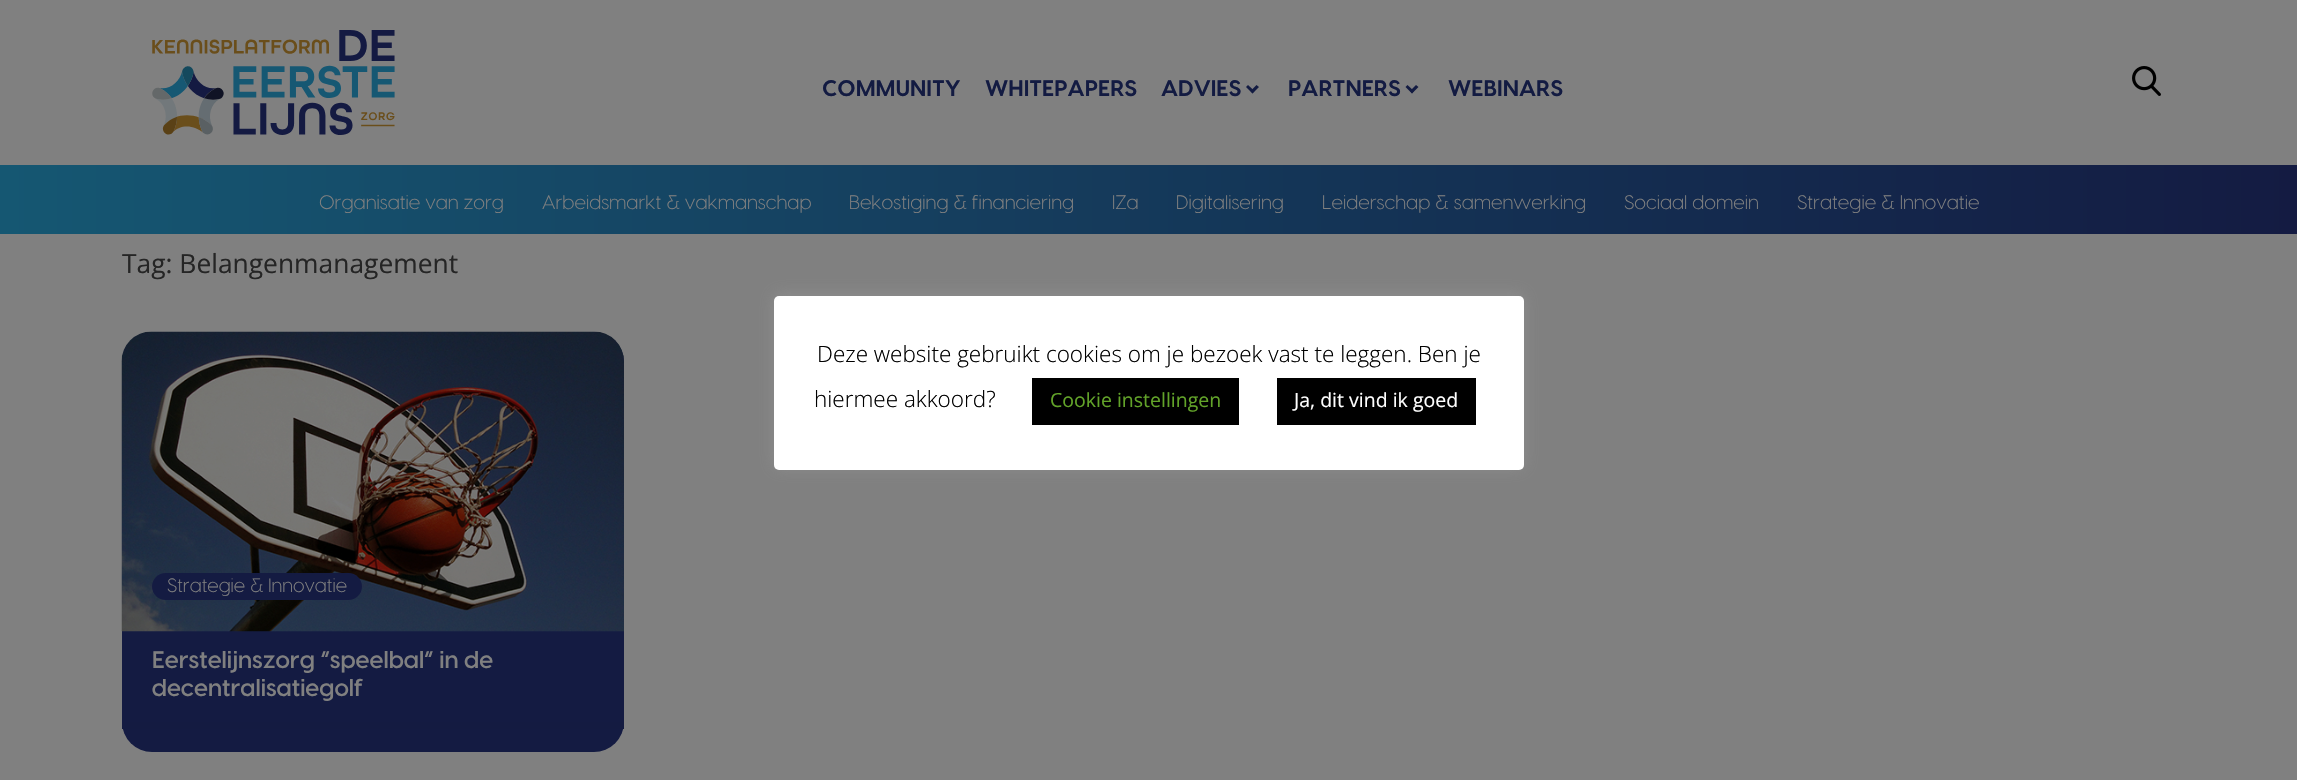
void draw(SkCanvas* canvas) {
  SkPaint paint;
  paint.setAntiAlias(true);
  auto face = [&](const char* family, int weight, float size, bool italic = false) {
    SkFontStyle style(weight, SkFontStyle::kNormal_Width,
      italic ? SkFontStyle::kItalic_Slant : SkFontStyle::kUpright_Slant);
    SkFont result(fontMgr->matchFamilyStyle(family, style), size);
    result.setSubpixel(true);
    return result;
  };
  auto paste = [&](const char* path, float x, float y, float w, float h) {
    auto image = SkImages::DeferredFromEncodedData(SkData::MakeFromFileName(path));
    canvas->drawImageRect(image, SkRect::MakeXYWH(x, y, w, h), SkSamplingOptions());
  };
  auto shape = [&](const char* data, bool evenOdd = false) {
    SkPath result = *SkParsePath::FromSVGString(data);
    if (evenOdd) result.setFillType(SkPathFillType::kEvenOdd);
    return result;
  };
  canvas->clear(0xff808080);
  paste("img/1.png", 152, 30, 243, 105);
  paint.setColor(0xff131b42);
  canvas->drawPath(shape("M1250.5 91L1256.5 85L1259 87L1252.5 93.5Z"), paint);
  canvas->drawPath(shape("M1246 87L1248 85L1254.5 91L1252.5 93.5Z"), paint);
  canvas->drawPath(shape("M1410 91L1416 85L1418.5 87L1412 93.5Z"), paint);
  canvas->drawPath(shape("M1405.5 87L1407.5 85L1414 91L1412 93.5Z"), paint);
  paste("img/2.png", 2132, 66, 29, 30);
  {
    const SkColor colors[] = {0xff155772, 0xff141b42};
    const float stops[] = {0, 1};
    const SkPoint ends[] = {{0, 200}, {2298, 199}};
    paint.setShader(SkGradientShader::MakeLinear(ends, colors, stops, 2, SkTileMode::kClamp));
    paint.setAlpha(255);
  }
  canvas->drawRect(SkRect::MakeXYWH(0, 165, 2297, 69), paint);
  paint.setShader(nullptr);
  paint.setColor(0xff141b42);
  canvas->drawRoundRect(SkRect::MakeXYWH(122, 332, 502, 420), 30, 30, paint);
  paste("img/3.png", 121, 331, 503, 301);
  paint.setColor(0xff141b41);
  canvas->drawRect(SkRect::MakeXYWH(122, 722, 502, 7), paint);
  paint.setColor(0xff141b42);
  canvas->drawRoundRect(SkRect::MakeXYWH(152, 573, 210, 27), 13.5f, 13.5f, paint);
  paint.setColor(0x4dacabab);
  paint.setMaskFilter(SkMaskFilter::MakeBlur(kNormal_SkBlurStyle, 7.5f));
  canvas->drawRoundRect(SkRect::MakeXYWH(774, 294, 750, 174), 5, 5, paint);
  paint.setMaskFilter(nullptr);
  paint.setColor(0xffffffff);
  canvas->drawRoundRect(SkRect::MakeXYWH(774, 296, 750, 174), 5, 5, paint);
  paint.setColor(0xff000000);
  canvas->drawRect(SkRect::MakeXYWH(1032, 378, 207, 47), paint);
  canvas->drawRect(SkRect::MakeXYWH(1277, 378, 199, 47), paint);
  auto f0 = face("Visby", 700, 22.5f);
  paint.setColor(0xff131b42);
  {
    const struct { const char* s; float x, y; } items[] = {
      {"COMMUNITY", 822, 96},
      {"WHITEPAPERS", 985, 96},
      {"ADVIES", 1161, 96},
      {"PARTNERS", 1288, 96},
      {"WEBINARS", 1448, 96},
    };
    for (auto [s, x, y] : items) {
      canvas->drawString(s, x, y, f0, paint);
    }
  }
  auto f1 = face("Visby", 300, 19.5f);
  paint.setColor(0xff808080);
  {
    const struct { const char* s; float x, y; } items[] = {
      {"Organisatie van zorg", 319, 209},
      {"Arbeidsmarkt & vakmanschap", 542, 209},
      {"Bekostiging & financiering", 849, 209},
      {"IZa", 1112, 209},
      {"Digitalisering", 1176, 209},
      {"Leiderschap & samenwerking", 1322, 209},
      {"Sociaal domein", 1624, 209},
      {"Strategie & Innovatie", 1797, 209},
    };
    for (auto [s, x, y] : items) {
      canvas->drawString(s, x, y, f1, paint);
    }
  }
  auto f2 = face("Open Sans", 400, 26.4f);
  paint.setColor(0xff252525);
  canvas->drawString("Tag: Belangenmanagement", 122, 273, f2, paint);
  auto f3 = face("Visby", 300, 19.25f);
  paint.setColor(0xff808080);
  canvas->drawString("Strategie & Innovatie", 167, 592, f3, paint);
  auto f4 = face("Visby", 600, 24);
  canvas->drawString("Eerstelijnszorg “speelbal” in de", 152, 668, f4, paint);
  canvas->drawString("decentralisatiegolf", 152, 696, f4, paint);
  auto f5 = face("Open Sans", 300, 22.5f);
  paint.setColor(0xff000000);
  canvas->drawString("Deze website gebruikt cookies om je bezoek vast te leggen. Ben je", 817, 362, f5, paint);
  canvas->drawString("hiermee akkoord?", 814, 407, f5, paint);
  auto f6 = face("Open Sans", 400, 19.5f);
  paint.setColor(0xff62a329);
  canvas->drawString("Cookie instellingen", 1050, 407, f6, paint);
  paint.setColor(0xffffffff);
  canvas->drawString("Ja, dit vind ik goed", 1294, 407, f6, paint);
}
